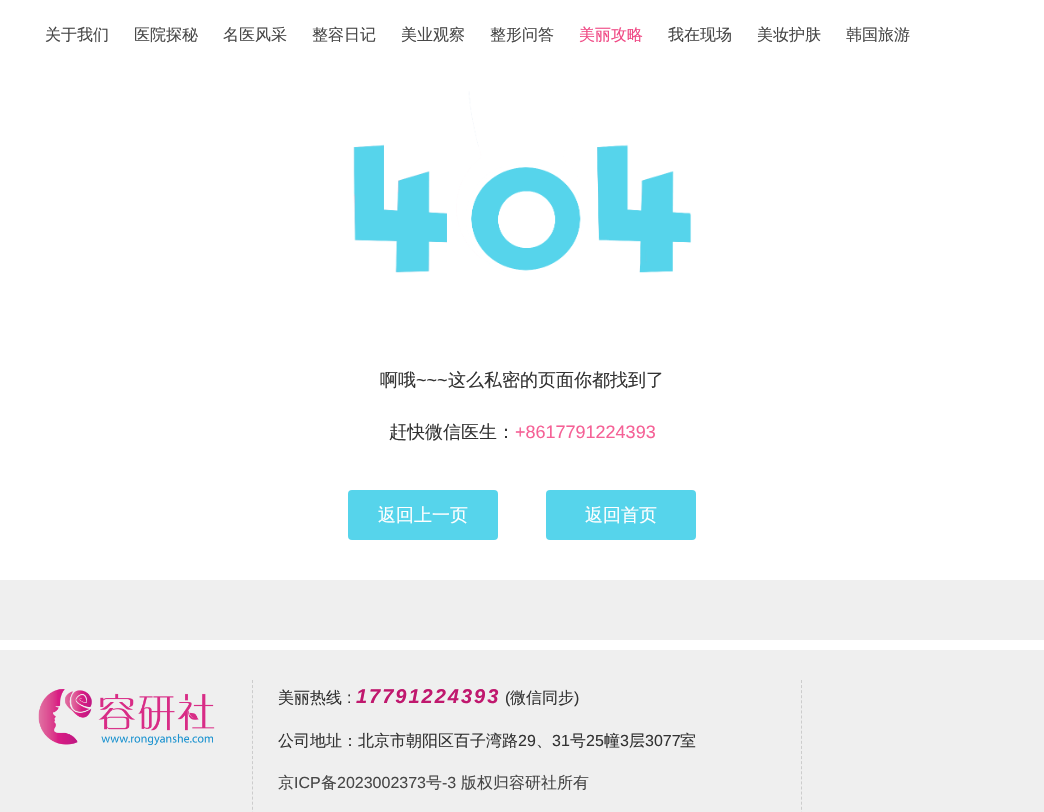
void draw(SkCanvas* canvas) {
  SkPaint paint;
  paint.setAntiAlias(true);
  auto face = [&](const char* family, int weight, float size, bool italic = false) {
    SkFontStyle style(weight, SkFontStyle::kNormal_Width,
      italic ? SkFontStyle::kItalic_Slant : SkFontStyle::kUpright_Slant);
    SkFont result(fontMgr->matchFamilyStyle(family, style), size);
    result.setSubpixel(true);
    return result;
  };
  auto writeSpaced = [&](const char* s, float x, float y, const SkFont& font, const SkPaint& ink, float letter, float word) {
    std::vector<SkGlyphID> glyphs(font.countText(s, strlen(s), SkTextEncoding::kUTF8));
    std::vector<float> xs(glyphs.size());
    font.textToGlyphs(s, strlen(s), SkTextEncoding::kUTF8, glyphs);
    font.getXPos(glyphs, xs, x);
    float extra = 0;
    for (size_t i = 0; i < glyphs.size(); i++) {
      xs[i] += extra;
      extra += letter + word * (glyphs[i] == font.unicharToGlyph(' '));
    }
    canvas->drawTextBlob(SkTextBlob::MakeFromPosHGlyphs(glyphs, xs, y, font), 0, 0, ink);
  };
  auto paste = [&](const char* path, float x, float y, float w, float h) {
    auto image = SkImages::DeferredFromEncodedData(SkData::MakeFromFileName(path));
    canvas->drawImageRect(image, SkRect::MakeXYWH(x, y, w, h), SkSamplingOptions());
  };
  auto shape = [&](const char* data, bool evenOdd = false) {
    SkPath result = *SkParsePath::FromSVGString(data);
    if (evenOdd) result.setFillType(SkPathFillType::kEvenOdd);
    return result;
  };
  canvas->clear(0xffffffff);
  paste("img/1.png", 353, 91, 339, 182);
  paint.setColor(0xff56d4eb);
  canvas->drawRoundRect(SkRect::MakeXYWH(348, 490, 150, 50), 4, 4, paint);
  canvas->drawRoundRect(SkRect::MakeXYWH(546, 490, 150, 50), 4, 4, paint);
  paint.setColor(0xffefefef);
  canvas->drawRect(SkRect::MakeXYWH(0, 580, 1044, 60), paint);
  canvas->drawRect(SkRect::MakeXYWH(0, 650, 1044, 162), paint);
  paste("img/2.png", 38, 689, 177, 57);
  paint.setStroke(true);
  paint.setStrokeWidth(1);
  paint.setColor(0xffcccccc);
  paint.setPathEffect(SkDashPathEffect::Make({{3, 2.07f}}, 0));
  canvas->drawPath(shape("M801.5 680V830"), paint);
  paint.setPathEffect(nullptr);
  paint.setPathEffect(SkDashPathEffect::Make({{3, 2.07f}}, 0));
  canvas->drawPath(shape("M252.5 680V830"), paint);
  paint.setPathEffect(nullptr);
  auto f0 = face("WenQuanYi Zen Hei", 500, 16);
  paint.setStroke(false);
  paint.setColor(0xff474747);
  {
    const struct { const char* s; float x, y; } items[] = {
      {"关于我们", 45, 40},
      {"医院探秘", 134, 40},
      {"名医风采", 223, 40},
      {"整容日记", 312, 40},
      {"美业观察", 401, 40},
      {"整形问答", 490, 40},
    };
    for (auto [s, x, y] : items) {
      canvas->drawString(s, x, y, f0, paint);
    }
  }
  paint.setColor(0xfff04884);
  canvas->drawString("美丽攻略", 579, 40, f0, paint);
  paint.setColor(0xff474747);
  {
    const struct { const char* s; float x, y; } items[] = {
      {"我在现场", 668, 40},
      {"美妆护肤", 757, 40},
      {"韩国旅游", 846, 40},
    };
    for (auto [s, x, y] : items) {
      canvas->drawString(s, x, y, f0, paint);
    }
  }
  auto f1 = face("WenQuanYi Zen Hei", 500, 18);
  paint.setColor(0xff333333);
  canvas->drawString("啊哦", 380, 386, f1, paint);
  auto f2 = face("Liberation Sans", 400, 18);
  canvas->drawString("~~~", 416, 386, f2, paint);
  canvas->drawString("这么私密的页面你都找到了", 448, 386, f1, paint);
  canvas->drawString("赶快微信医生：", 389, 438, f1, paint);
  paint.setColor(0xfff56196);
  canvas->drawString("+8617791224393", 515, 438, f2, paint);
  paint.setColor(0xffffffff);
  canvas->drawString("返回上一页", 378, 521, f1, paint);
  canvas->drawString("返回首页", 585, 521, f1, paint);
  paint.setColor(0xff333333);
  canvas->drawString("美丽热线", 278, 703, f0, paint);
  auto f3 = face("Liberation Sans", 400, 16);
  canvas->drawString(":", 347, 703, f3, paint);
  auto f4 = face("Liberation Sans", 700, 20, true);
  paint.setColor(0xffc0186e);
  writeSpaced("17791224393", 356, 703, f4, paint, 2, 0);
  paint.setColor(0xff333333);
  canvas->drawString("(", 505, 703, f3, paint);
  canvas->drawString("微信同步", 510, 703, f0, paint);
  canvas->drawString(")", 574, 703, f3, paint);
  canvas->drawString("公司地址：北京市朝阳区百子湾路", 278, 746, f0, paint);
  canvas->drawString("29", 518, 746, f3, paint);
  canvas->drawString("、", 536, 746, f0, paint);
  canvas->drawString("31", 552, 746, f3, paint);
  canvas->drawString("号", 570, 746, f0, paint);
  canvas->drawString("25", 586, 746, f3, paint);
  canvas->drawString("幢", 604, 746, f0, paint);
  canvas->drawString("3", 620, 746, f3, paint);
  canvas->drawString("层", 629, 746, f0, paint);
  canvas->drawString("3077", 645, 746, f3, paint);
  canvas->drawString("室", 680, 746, f0, paint);
  paint.setColor(0xff474747);
  canvas->drawString("京", 278, 788, f0, paint);
  canvas->drawString("ICP", 294, 788, f3, paint);
  canvas->drawString("备", 321, 788, f0, paint);
  canvas->drawString("2023002373", 337, 788, f3, paint);
  canvas->drawString("号", 426, 788, f0, paint);
  canvas->drawString("-3", 442, 788, f3, paint);
  canvas->drawString("版权归容研社所有", 461, 788, f0, paint);
}
